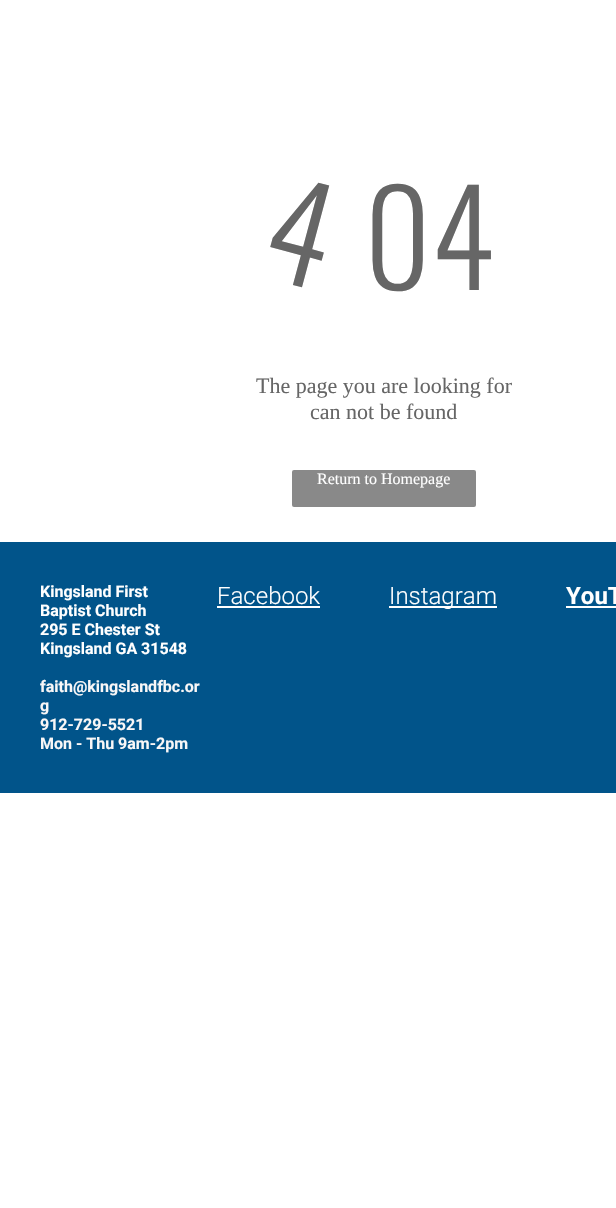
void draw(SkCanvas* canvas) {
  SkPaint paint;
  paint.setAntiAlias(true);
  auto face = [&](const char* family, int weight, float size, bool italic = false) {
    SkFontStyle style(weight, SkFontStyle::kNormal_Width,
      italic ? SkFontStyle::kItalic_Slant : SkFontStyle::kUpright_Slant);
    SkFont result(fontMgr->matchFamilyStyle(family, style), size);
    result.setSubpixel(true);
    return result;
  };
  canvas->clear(0xffffffff);
  paint.setColor(0xff898989);
  canvas->drawRoundRect(SkRect::MakeXYWH(292, 470, 184, 37), 2, 2, paint);
  {
    const struct { float x, y, w, h; SkColor color; } items[] = {
      {0, 542, 616, 251, 0xff01548a},
      {217, 606, 103, 2, 0xffffffff},
      {389, 606, 108, 2, 0xffffffff},
      {566, 606, 50, 2, 0xffffffff},
    };
    for (auto [x, y, w, h, color] : items) {
      paint.setColor(color);
      canvas->drawRect(SkRect::MakeXYWH(x, y, w, h), paint);
    }
  }
  auto f0 = face("Oswald", 300, 130);
  paint.setColor(0xff666666);
  canvas->save();
  canvas->rotate(15, 256, 275);
  canvas->drawString("4", 256, 275, f0, paint);
  canvas->restore();
  canvas->drawString("04", 364, 290, f0, paint);
  auto f1 = face("Liberation Serif", 400, 22);
  canvas->drawString("The page you are looking for", 256, 393, f1, paint);
  canvas->drawString("can not be found", 310, 419, f1, paint);
  auto f2 = face("Liberation Serif", 400, 16);
  paint.setColor(0xffffffff);
  canvas->drawString("Return to Homepage", 317, 484, f2, paint);
  auto f3 = face("Roboto", 700, 16);
  {
    const struct { const char* s; float x, y; } items[] = {
      {"Kingsland First", 40, 597},
      {"Baptist Church", 40, 616},
      {"295 E Chester St", 40, 635},
      {"Kingsland GA 31548", 40, 654},
    };
    for (auto [s, x, y] : items) {
      canvas->drawString(s, x, y, f3, paint);
    }
  }
  paint.setColor(0xfff9f7f7);
  {
    const struct { const char* s; float x, y; } items[] = {
      {"faith@kingslandfbc.or", 40, 692},
      {"g", 40, 711},
      {"912-729-5521", 40, 730},
      {"Mon - Thu 9am-2pm", 40, 749},
    };
    for (auto [s, x, y] : items) {
      canvas->drawString(s, x, y, f3, paint);
    }
  }
  auto f4 = face("Roboto", 300, 24);
  paint.setColor(0xffffffff);
  canvas->drawString("Facebook", 217, 604, f4, paint);
  canvas->drawString("Instagram", 389, 604, f4, paint);
  auto f5 = face("Roboto", 700, 24);
  canvas->drawString("YouT", 566, 604, f5, paint);
}
